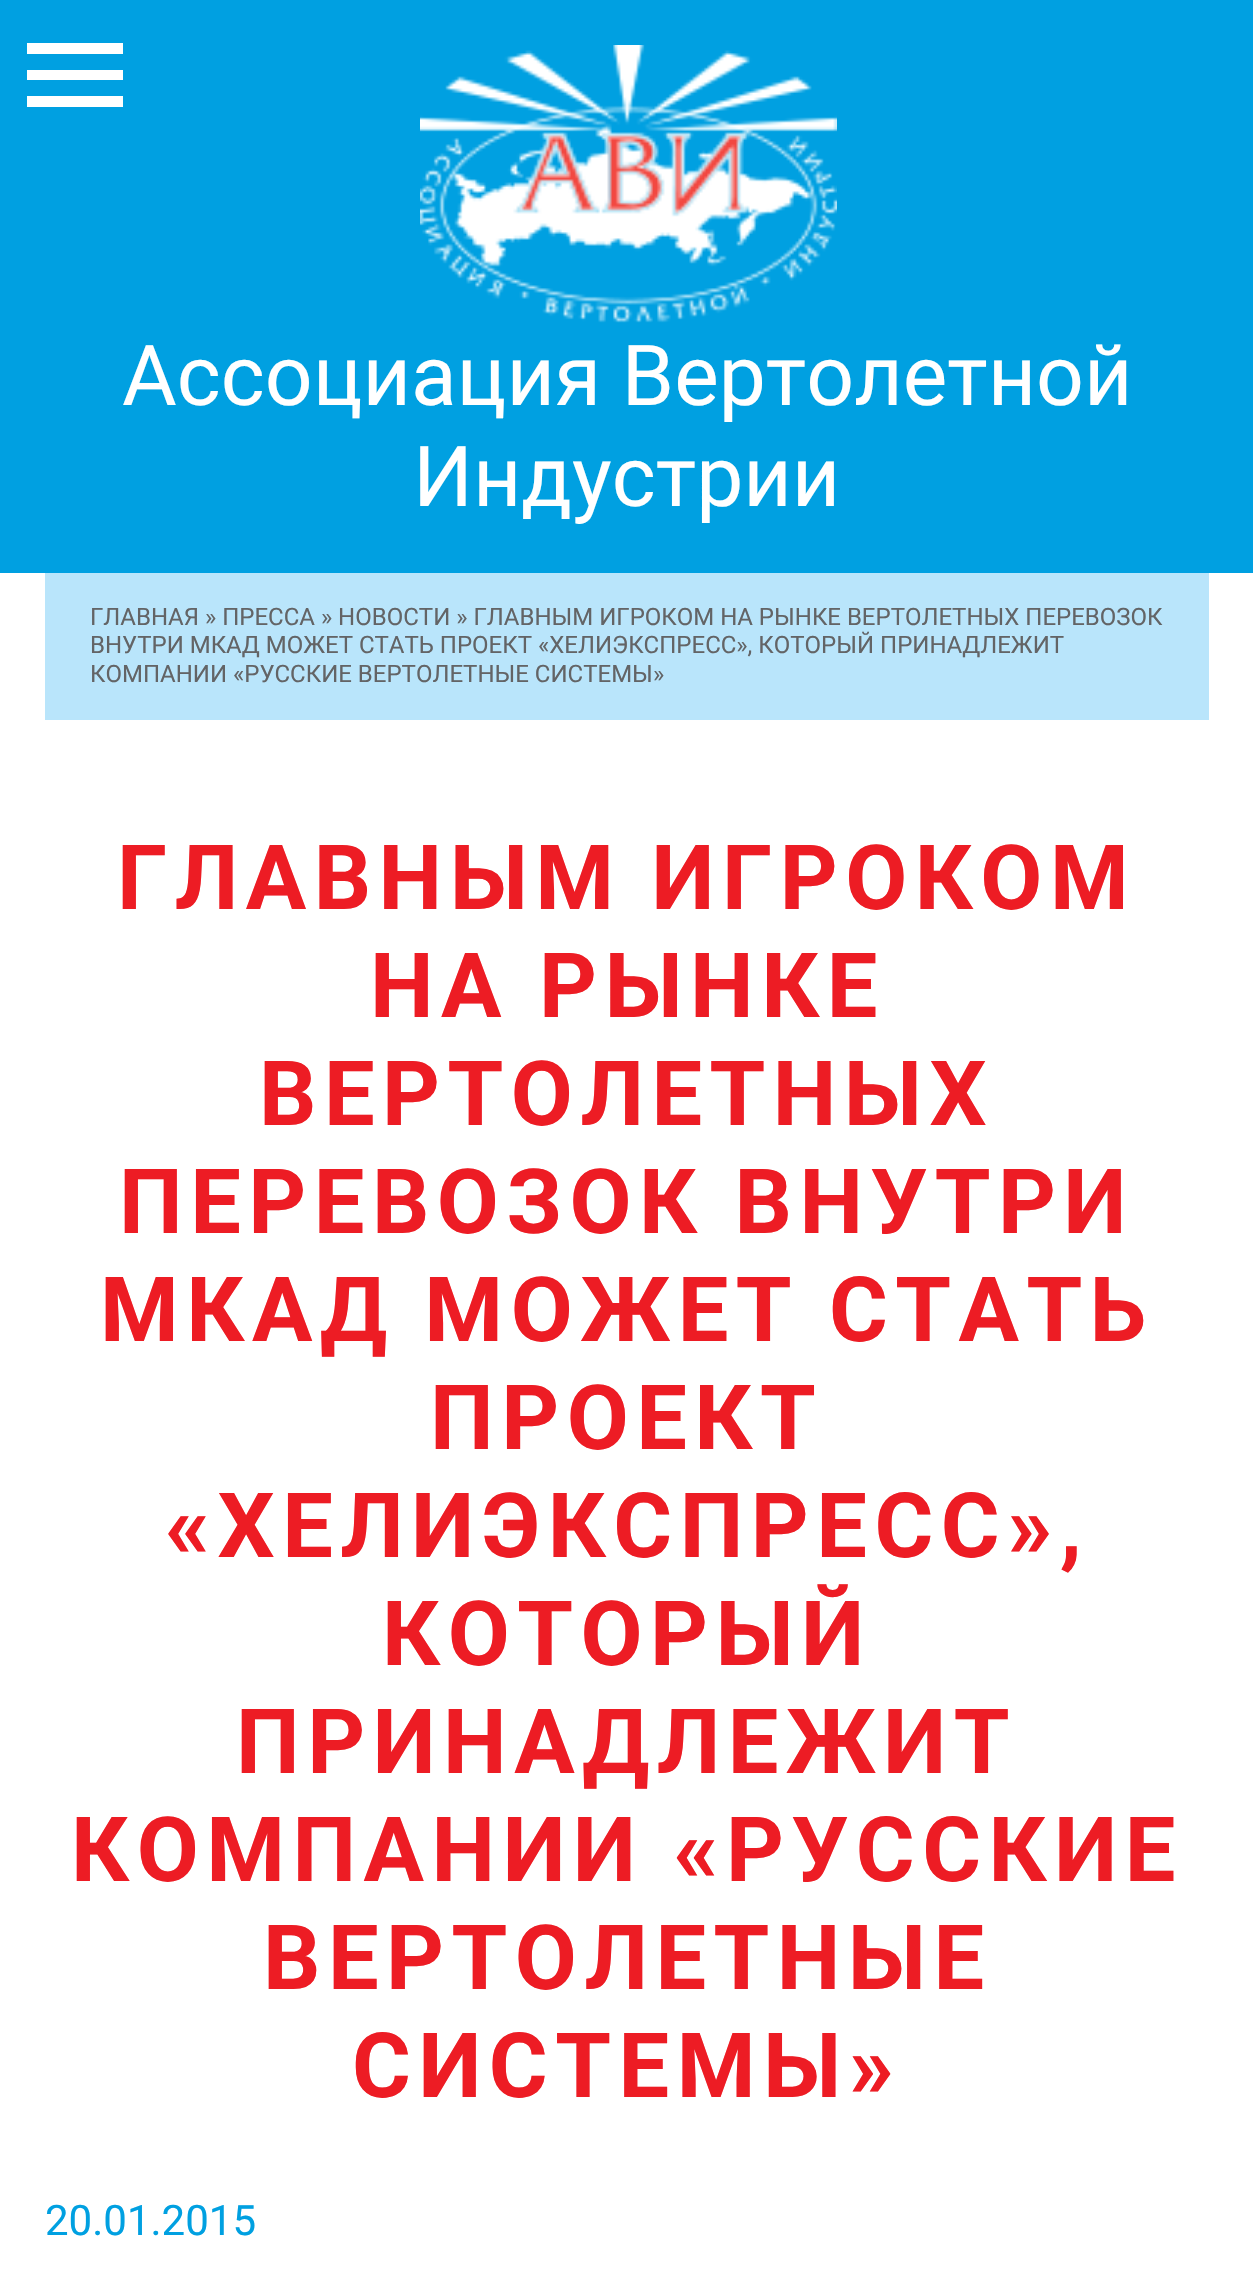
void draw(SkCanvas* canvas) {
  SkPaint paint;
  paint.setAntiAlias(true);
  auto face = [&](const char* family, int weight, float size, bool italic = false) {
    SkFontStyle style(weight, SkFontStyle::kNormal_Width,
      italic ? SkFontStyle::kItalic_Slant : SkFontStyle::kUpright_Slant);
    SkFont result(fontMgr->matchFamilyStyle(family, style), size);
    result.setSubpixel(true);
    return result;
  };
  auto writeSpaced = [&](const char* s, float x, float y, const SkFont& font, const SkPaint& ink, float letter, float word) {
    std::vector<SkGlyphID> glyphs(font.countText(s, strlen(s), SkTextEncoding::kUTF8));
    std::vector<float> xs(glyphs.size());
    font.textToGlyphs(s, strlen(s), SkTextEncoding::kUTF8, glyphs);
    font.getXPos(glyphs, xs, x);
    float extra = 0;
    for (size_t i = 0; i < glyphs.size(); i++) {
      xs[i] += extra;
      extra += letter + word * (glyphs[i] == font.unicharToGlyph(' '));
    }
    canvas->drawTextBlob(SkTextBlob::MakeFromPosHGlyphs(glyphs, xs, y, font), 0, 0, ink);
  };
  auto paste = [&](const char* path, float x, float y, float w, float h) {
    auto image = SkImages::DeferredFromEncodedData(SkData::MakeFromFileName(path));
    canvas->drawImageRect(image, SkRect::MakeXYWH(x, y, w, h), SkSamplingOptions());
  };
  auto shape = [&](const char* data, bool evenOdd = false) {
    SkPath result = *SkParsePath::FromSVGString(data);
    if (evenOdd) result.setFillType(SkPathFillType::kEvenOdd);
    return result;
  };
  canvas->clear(0xffffffff);
  paint.setColor(0xff00a0e1);
  canvas->drawRect(SkRect::MakeXYWH(0, 0, 1253, 573), paint);
  paint.setColor(0xffffffff);
  canvas->drawPath(shape("M27 107H123V96H27ZM27 80H123V70H27ZM27 43V54H123V43Z"), paint);
  paste("img/1.png", 420, 45, 417, 278);
  paint.setColor(0xffb9e5fb);
  canvas->drawRect(SkRect::MakeXYWH(45, 573, 1164, 147), paint);
  auto f0 = face("Roboto", 400, 84);
  paint.setColor(0xffffffff);
  canvas->drawString("Ассоциация Вертолетной", 122, 405, f0, paint);
  canvas->drawString("Индустрии", 413, 506, f0, paint);
  auto f1 = face("Roboto", 400, 24);
  paint.setColor(0xff636466);
  {
    const struct { const char* s; float x, y; } items[] = {
      {"ГЛАВНАЯ » ПРЕССА » НОВОСТИ » ГЛАВНЫМ ИГРОКОМ НА РЫНКЕ ВЕРТОЛЕТНЫХ ПЕРЕВОЗОК", 90, 625},
      {"ВНУТРИ МКАД МОЖЕТ СТАТЬ ПРОЕКТ «ХЕЛИЭКСПРЕСС», КОТОРЫЙ ПРИНАДЛЕЖИТ", 90, 653},
      {"КОМПАНИИ «РУССКИЕ ВЕРТОЛЕТНЫЕ СИСТЕМЫ»", 90, 682},
    };
    for (auto [s, x, y] : items) {
      canvas->drawString(s, x, y, f1, paint);
    }
  }
  auto f2 = face("Roboto", 700, 90);
  paint.setColor(0xffed1c24);
  {
    const struct { const char* s; float x, y; } items[] = {
      {"ГЛАВНЫМ ИГРОКОМ", 117, 909},
      {"НА РЫНКЕ", 370, 1017},
      {"ВЕРТОЛЕТНЫХ", 259, 1125},
      {"ПЕРЕВОЗОК ВНУТРИ", 119, 1233},
      {"МКАД МОЖЕТ СТАТЬ", 100, 1341},
      {"ПРОЕКТ", 430, 1449},
      {"«ХЕЛИЭКСПРЕСС»,", 165, 1557},
      {"КОТОРЫЙ", 382, 1665},
      {"ПРИНАДЛЕЖИТ", 236, 1773},
      {"КОМПАНИИ «РУССКИЕ", 71, 1881},
      {"ВЕРТОЛЕТНЫЕ", 263, 1989},
      {"СИСТЕМЫ»", 352, 2097},
    };
    for (auto [s, x, y] : items) {
      writeSpaced(s, x, y, f2, paint, 7.5f, 0);
    }
  }
  auto f3 = face("Roboto", 400, 42);
  paint.setColor(0xff00a0e1);
  canvas->drawString("20.01.2015", 45, 2235, f3, paint);
}
